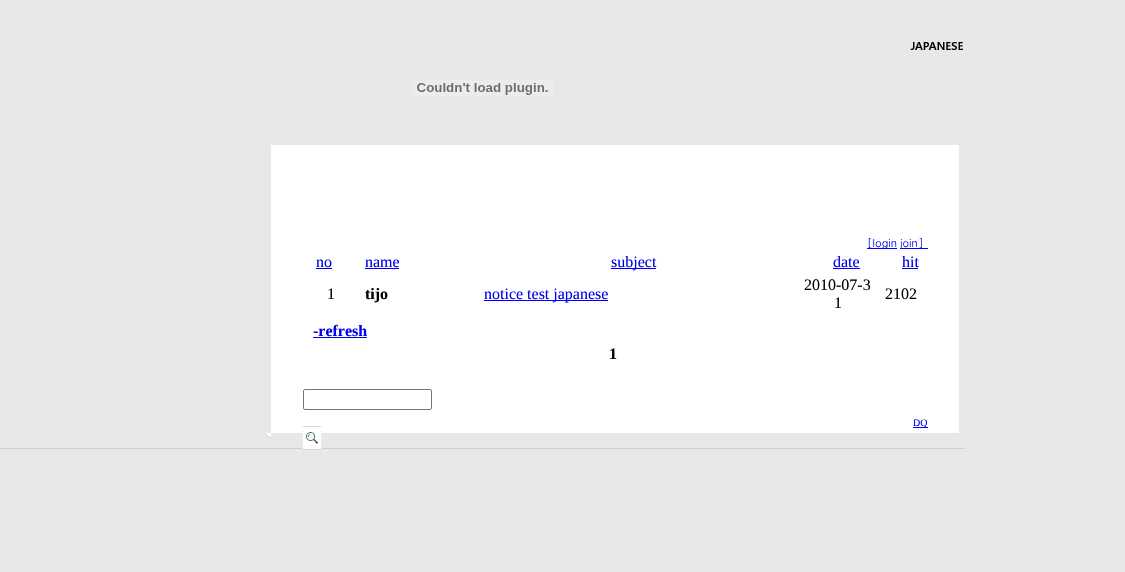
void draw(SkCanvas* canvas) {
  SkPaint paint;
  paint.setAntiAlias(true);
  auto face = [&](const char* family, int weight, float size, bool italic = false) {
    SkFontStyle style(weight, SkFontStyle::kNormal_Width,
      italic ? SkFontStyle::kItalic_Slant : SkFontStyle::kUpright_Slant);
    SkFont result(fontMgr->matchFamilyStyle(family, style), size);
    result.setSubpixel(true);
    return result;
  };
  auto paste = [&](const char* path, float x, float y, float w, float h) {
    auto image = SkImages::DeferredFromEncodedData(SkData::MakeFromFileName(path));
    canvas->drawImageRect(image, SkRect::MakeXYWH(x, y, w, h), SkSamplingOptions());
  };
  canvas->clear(0xffe8e8e8);
  paste("img/1.png", 910, 42, 53, 8);
  paste("img/2.png", 411, 79, 143, 18);
  {
    const struct { float x, y, w, h; SkColor color; } items[] = {
      {271, 145, 688, 288, 0xffffffff},
      {867, 248, 30, 1, 0xff0000ee},
      {900, 248, 28, 1, 0xff0000ee},
      {316, 268, 16, 1, 0xff0000ee},
      {365, 268, 34, 1, 0xff0000ee},
      {611, 268, 45, 1, 0xff0000ee},
      {833, 268, 27, 1, 0xff0000ee},
      {902, 268, 16, 1, 0xff0000ee},
      {484, 300, 124, 1, 0xff0000ee},
      {313, 337, 54, 1, 0xff0000ee},
    };
    for (auto [x, y, w, h, color] : items) {
      paint.setColor(color);
      canvas->drawRect(SkRect::MakeXYWH(x, y, w, h), paint);
    }
  }
  paint.setStroke(true);
  paint.setStrokeWidth(1);
  paint.setColor(0xff767676);
  canvas->drawRoundRect(SkRect::MakeXYWH(303.5f, 389.5f, 128, 20), 1.5f, 1.5f, paint);
  paint.setStroke(false);
  paint.setColor(0xffcfcfcf);
  canvas->drawRect(SkRect::MakeXYWH(0, 448, 965, 1), paint);
  paste("img/3.png", 303, 426, 18, 24);
  paint.setColor(0xff0000ee);
  canvas->drawRect(SkRect::MakeXYWH(913, 427, 15, 1), paint);
  paste("img/4.png", 265, 433, 6, 5);
  auto f0 = face("Dotum", 400, 11);
  canvas->drawString("[login", 867, 247, f0, paint);
  canvas->drawString("join]", 900, 247, f0, paint);
  auto f1 = face("Liberation Serif", 400, 16);
  {
    const struct { const char* s; float x, y; } items[] = {
      {"no", 316, 267},
      {"name", 365, 267},
      {"subject", 611, 267},
      {"date", 833, 267},
      {"hit", 902, 267},
    };
    for (auto [s, x, y] : items) {
      canvas->drawString(s, x, y, f1, paint);
    }
  }
  paint.setColor(0xff000000);
  canvas->drawString("1", 327, 299, f1, paint);
  auto f2 = face("Liberation Serif", 700, 16);
  canvas->drawString("tijo", 365, 299, f2, paint);
  paint.setColor(0xff0000ee);
  canvas->drawString("notice test japanese", 484, 299, f1, paint);
  paint.setColor(0xff000000);
  {
    const struct { const char* s; float x, y; } items[] = {
      {"2010-07-3", 804, 290},
      {"1", 834, 308},
      {"2102", 885, 299},
    };
    for (auto [s, x, y] : items) {
      canvas->drawString(s, x, y, f1, paint);
    }
  }
  paint.setColor(0xff0000ee);
  canvas->drawString("-refresh", 313, 336, f2, paint);
  paint.setColor(0xff000000);
  canvas->drawString("1", 609, 359, f2, paint);
  auto f3 = face("Liberation Serif", 400, 10);
  paint.setColor(0xff0000ee);
  canvas->drawString("DQ", 913, 426, f3, paint);
}
